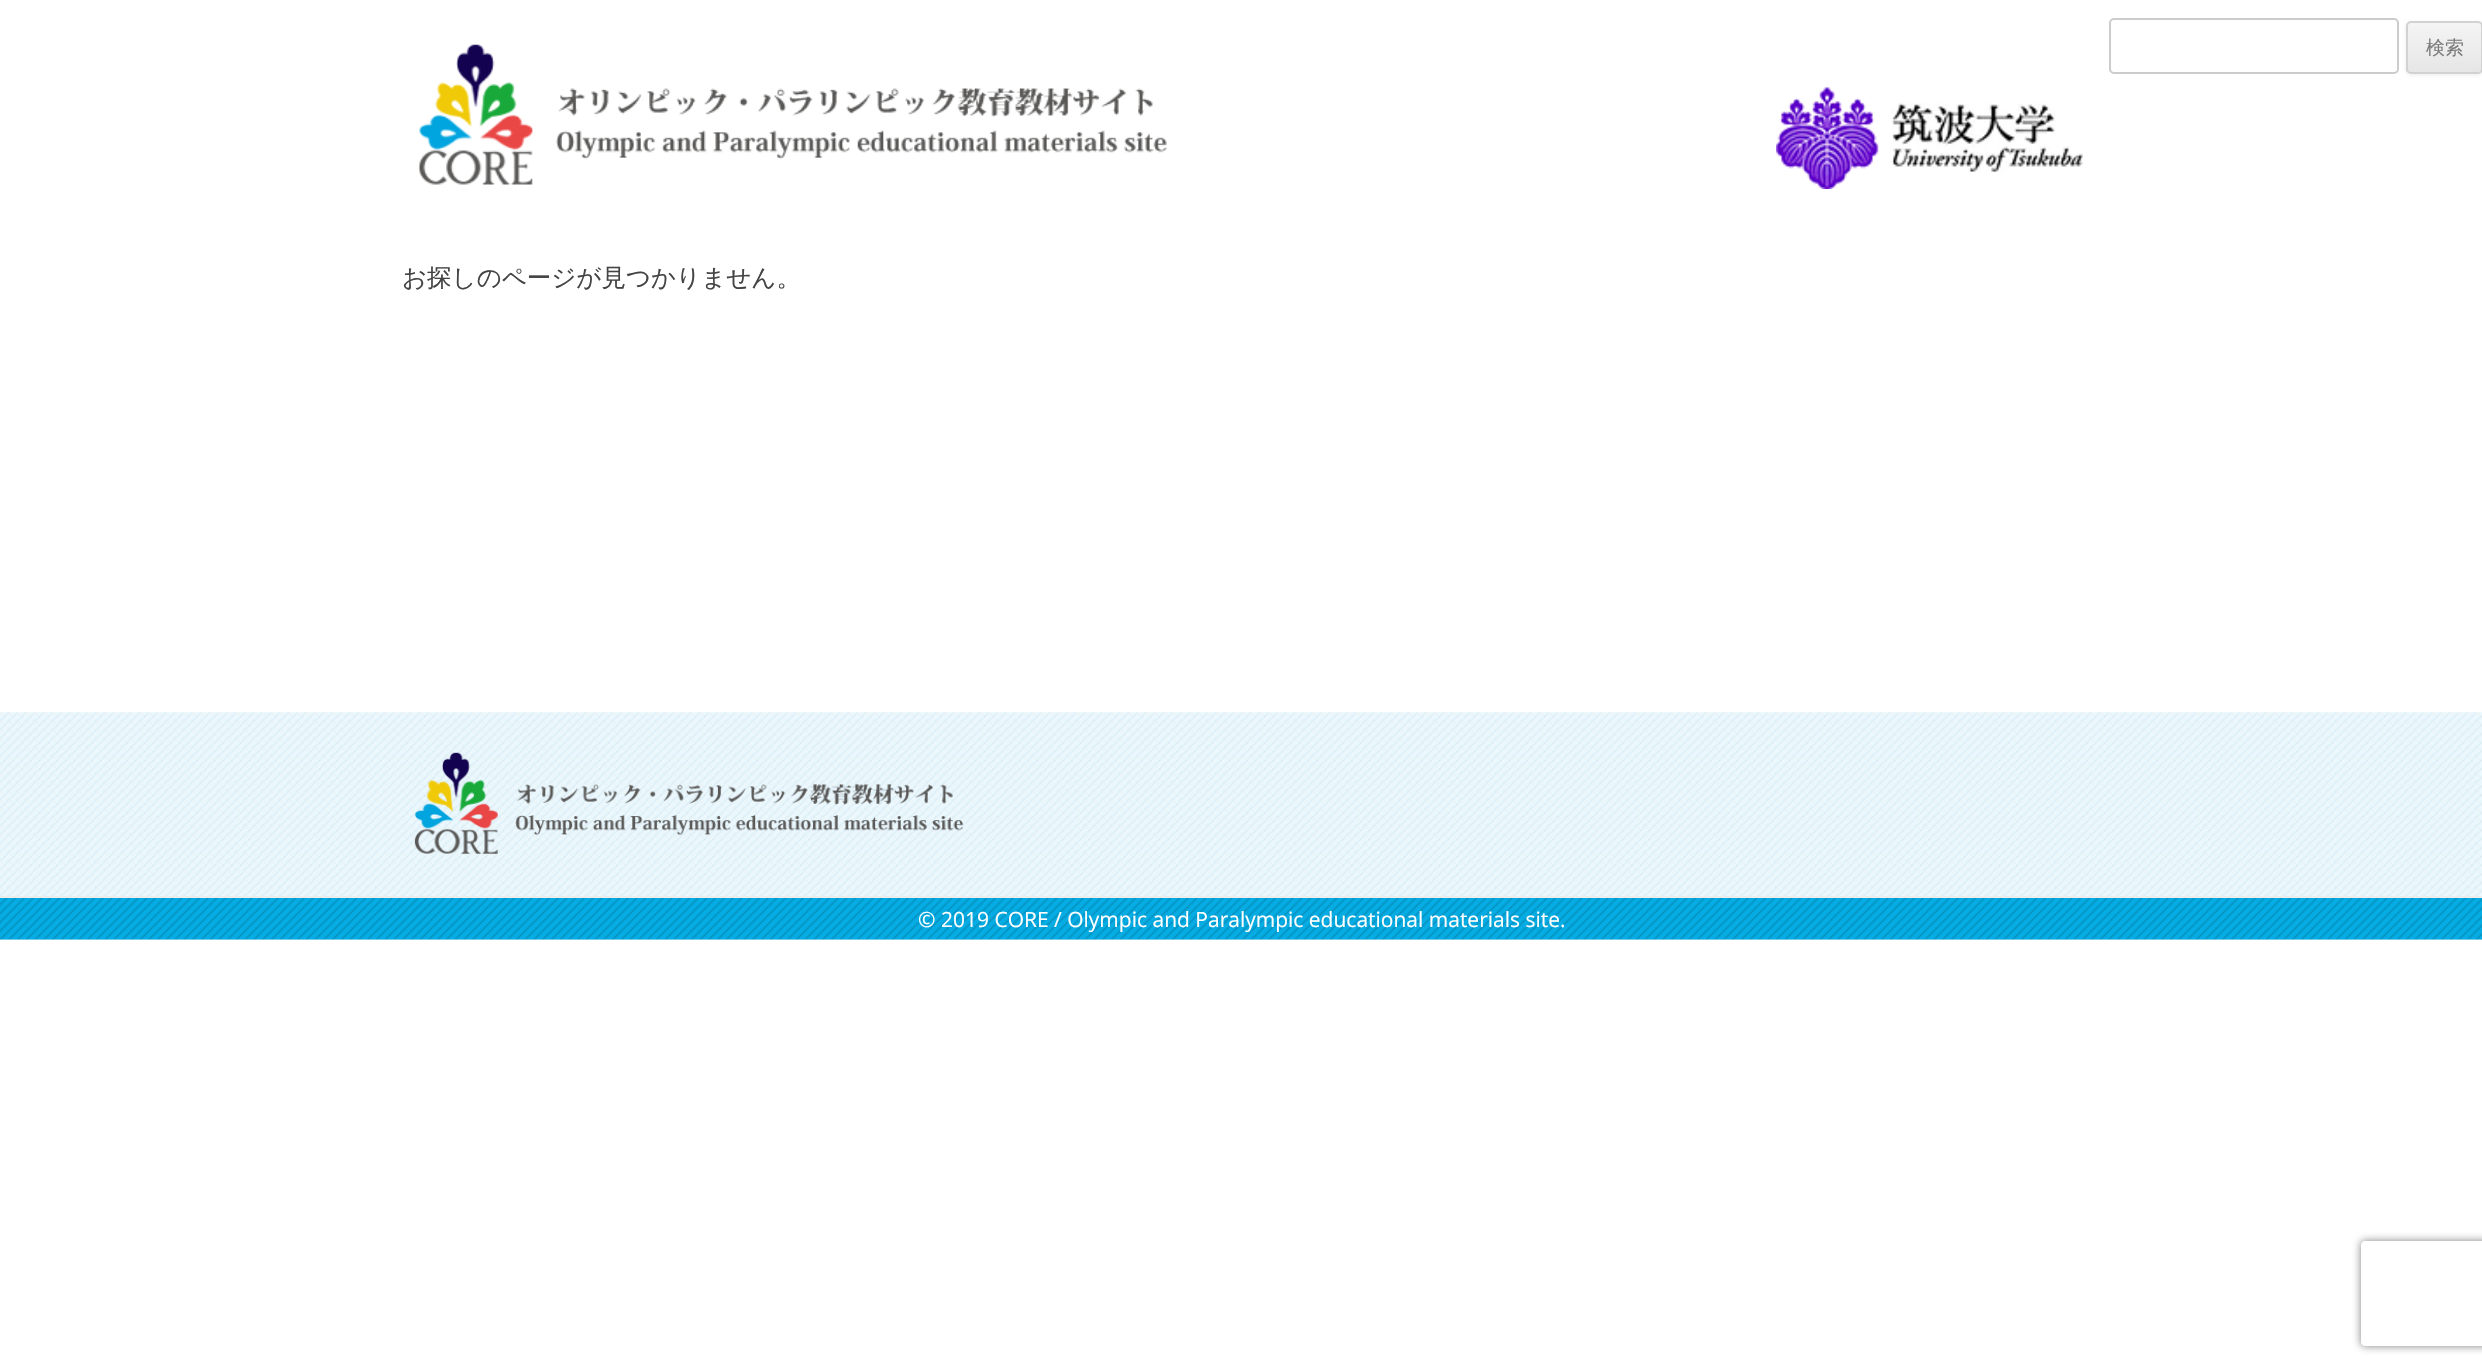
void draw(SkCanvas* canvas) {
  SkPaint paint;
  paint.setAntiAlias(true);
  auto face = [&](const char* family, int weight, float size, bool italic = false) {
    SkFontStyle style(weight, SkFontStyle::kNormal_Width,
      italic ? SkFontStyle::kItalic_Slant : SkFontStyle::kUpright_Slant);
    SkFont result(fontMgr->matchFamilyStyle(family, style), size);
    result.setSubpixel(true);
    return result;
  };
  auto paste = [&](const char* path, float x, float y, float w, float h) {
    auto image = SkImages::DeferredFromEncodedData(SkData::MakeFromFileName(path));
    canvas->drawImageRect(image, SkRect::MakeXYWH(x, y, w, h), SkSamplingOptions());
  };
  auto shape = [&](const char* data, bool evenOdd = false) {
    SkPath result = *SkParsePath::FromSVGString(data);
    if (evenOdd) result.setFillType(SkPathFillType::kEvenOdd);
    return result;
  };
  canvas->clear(0xffffffff);
  paint.setStroke(true);
  paint.setStrokeWidth(2);
  paint.setColor(0xffcccccc);
  canvas->drawRoundRect(SkRect::MakeXYWH(2110, 19, 288, 54), 4, 4, paint);
  paint.setStroke(false);
  paint.setColor(0x1a404040);
  paint.setMaskFilter(SkMaskFilter::MakeBlur(kNormal_SkBlurStyle, 2));
  canvas->drawRoundRect(SkRect::MakeXYWH(2406, 23, 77, 52), 5, 5, paint);
  paint.setMaskFilter(nullptr);
  canvas->save();
  canvas->clipPath(shape("M2411 21H2478C2481 21 2483 23 2483 26V69C2483 72 2481 74 2478 74H2411C2408 74 2406 72 2406 69V26C2406 23 2408 21 2411 21Z"), true);
  {
    const SkColor colors[] = {0xfff4f4f4, 0xffe6e6e6};
    const float stops[] = {0, 1};
    const SkPoint ends[] = {{2445, 23}, {2445, 72}};
    paint.setShader(SkGradientShader::MakeLinear(ends, colors, stops, 2, SkTileMode::kClamp));
    paint.setAlpha(255);
  }
  canvas->drawRect(SkRect::MakeXYWH(2406, 23, 75, 49), paint);
  canvas->restore();
  paint.setStroke(true);
  paint.setShader(nullptr);
  paint.setColor(0xffd2d2d2);
  canvas->drawRoundRect(SkRect::MakeXYWH(2407, 22, 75, 51), 4, 4, paint);
  paste("img/1.png", 419, 44, 748, 141);
  paste("img/2.png", 1776, 87, 307, 102);
  paste("img/3.png", 0, 712, 2482, 184);
  paste("img/4.png", 414, 752, 549, 102);
  paste("img/5.png", 0, 898, 2482, 42);
  paint.setStroke(false);
  paint.setColor(0xffededed);
  canvas->drawRect(SkRect::MakeXYWH(0, 896, 2482, 2), paint);
  canvas->save();
  canvas->clipPath(shape("M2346 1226H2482V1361H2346ZM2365 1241H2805C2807 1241 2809 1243 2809 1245V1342C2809 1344 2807 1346 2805 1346H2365C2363 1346 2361 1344 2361 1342V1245C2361 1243 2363 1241 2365 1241Z", true), true);
  paint.setColor(0xff808080);
  paint.setMaskFilter(SkMaskFilter::MakeBlur(kNormal_SkBlurStyle, 4.5f));
  canvas->drawRoundRect(SkRect::MakeXYWH(2361, 1241, 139, 105), 4, 4, paint);
  paint.setMaskFilter(nullptr);
  canvas->restore();
  auto f0 = face("WenQuanYi Zen Hei", 500, 19);
  paint.setColor(0xff7c7c7c);
  canvas->drawString("検索", 2426, 54, f0, paint);
  auto f1 = face("WenQuanYi Zen Hei", 500, 24.5f);
  paint.setColor(0xff444444);
  canvas->drawString("お探しのページが見つかりません。", 402, 286, f1, paint);
  auto f2 = face("Open Sans", 400, 21);
  paint.setColor(0xffffffff);
  canvas->drawString("© 2019 CORE / Olympic and Paralympic educational materials site.", 918, 927, f2, paint);
}
